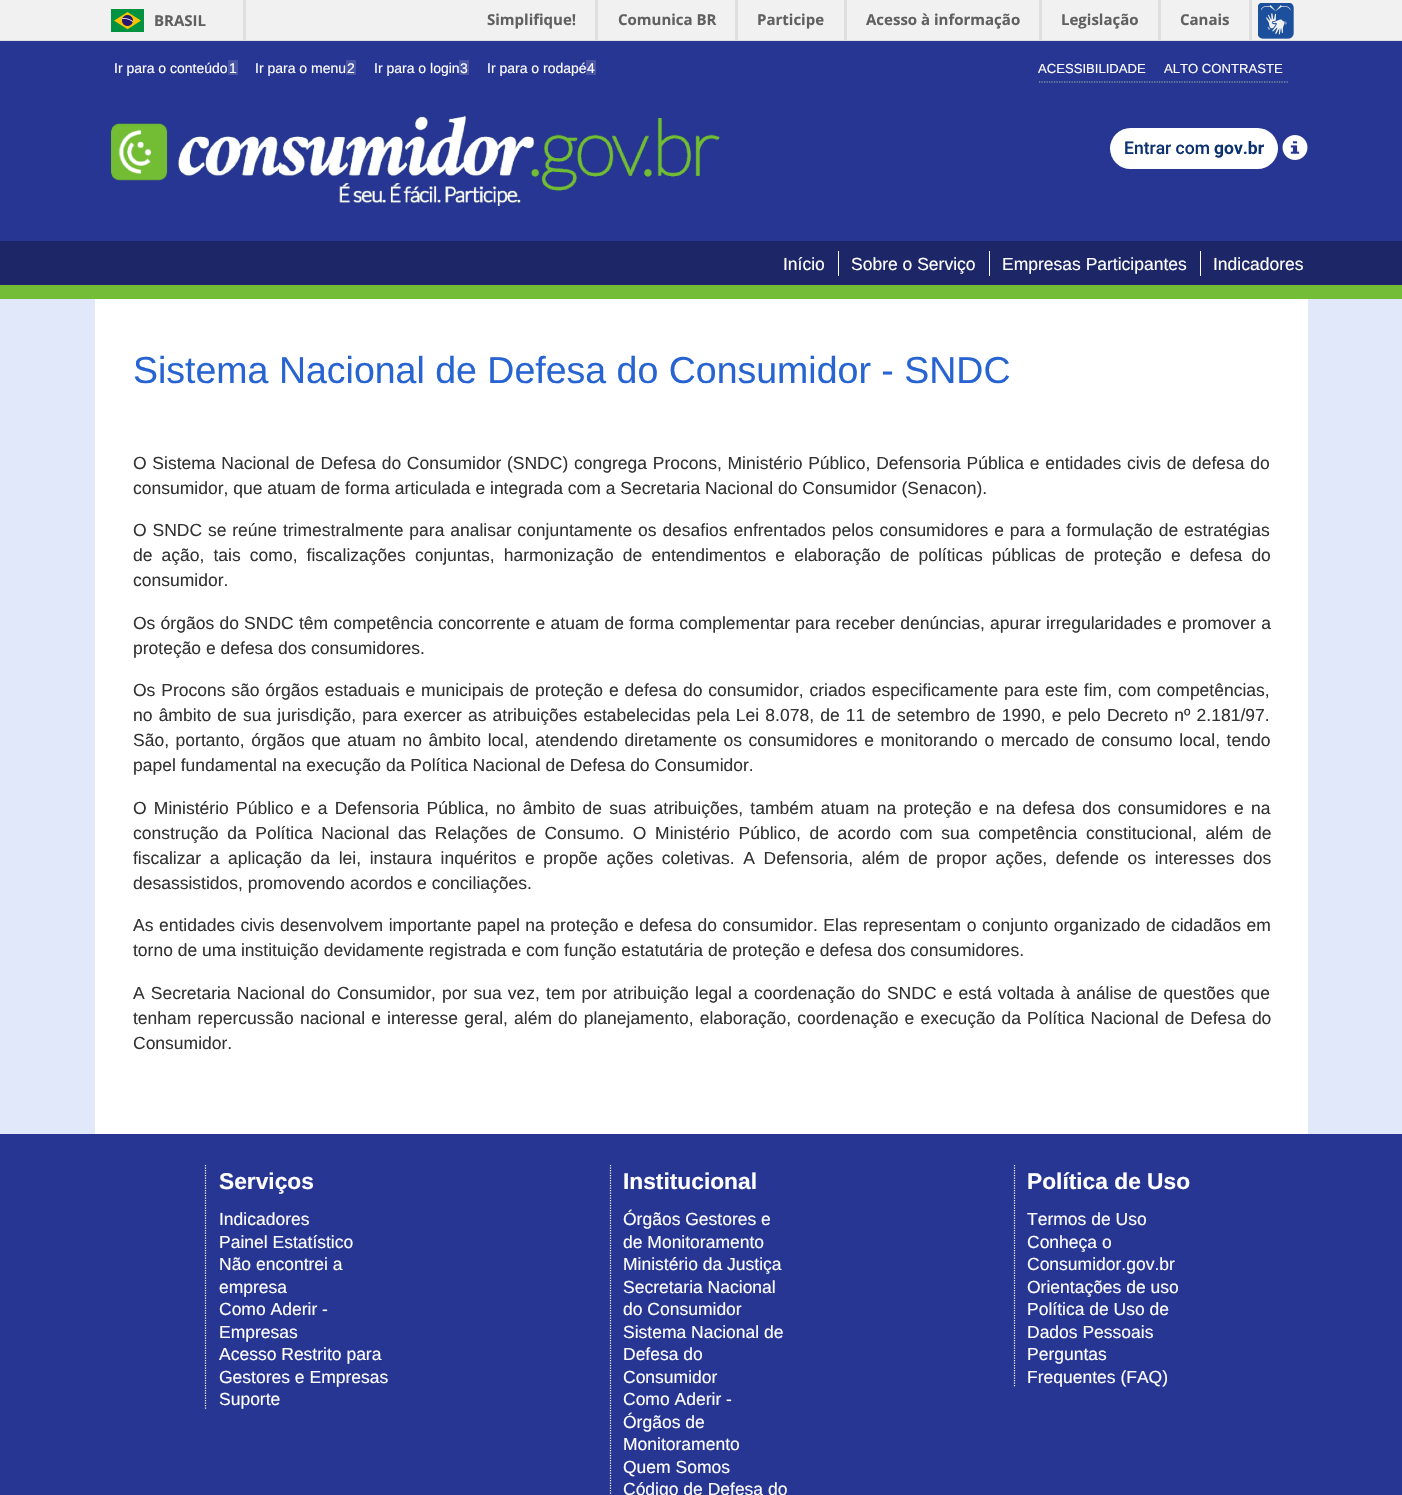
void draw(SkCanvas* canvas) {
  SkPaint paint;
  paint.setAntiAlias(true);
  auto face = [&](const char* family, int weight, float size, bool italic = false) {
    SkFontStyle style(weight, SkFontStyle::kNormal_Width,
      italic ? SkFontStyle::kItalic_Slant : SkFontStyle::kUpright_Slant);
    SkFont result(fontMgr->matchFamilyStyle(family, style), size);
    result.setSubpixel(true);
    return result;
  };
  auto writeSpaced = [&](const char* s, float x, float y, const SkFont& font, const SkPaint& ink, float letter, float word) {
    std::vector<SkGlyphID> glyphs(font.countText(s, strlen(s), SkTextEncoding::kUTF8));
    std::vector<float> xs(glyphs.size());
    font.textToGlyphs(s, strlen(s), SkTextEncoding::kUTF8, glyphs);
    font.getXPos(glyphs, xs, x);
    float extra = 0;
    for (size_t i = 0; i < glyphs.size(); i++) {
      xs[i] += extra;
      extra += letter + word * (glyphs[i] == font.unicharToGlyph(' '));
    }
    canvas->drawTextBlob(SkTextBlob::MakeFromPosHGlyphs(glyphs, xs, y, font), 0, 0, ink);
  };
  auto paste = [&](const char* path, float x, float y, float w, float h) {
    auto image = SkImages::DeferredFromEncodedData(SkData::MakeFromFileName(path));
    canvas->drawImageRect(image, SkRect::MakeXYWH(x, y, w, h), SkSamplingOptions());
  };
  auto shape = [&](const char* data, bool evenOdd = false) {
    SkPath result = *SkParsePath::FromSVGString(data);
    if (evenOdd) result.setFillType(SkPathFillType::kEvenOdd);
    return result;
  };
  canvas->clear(0xffe0e8fa);
  {
    const struct { float x, y, w, h; SkColor color; } items[] = {
      {0, 0, 1402, 40, 0xfff1f1f1},
      {0, 40, 1402, 1, 0xffdfdfdf},
      {243, 0, 3, 40, 0xffdfdfdf},
    };
    for (auto [x, y, w, h, color] : items) {
      paint.setColor(color);
      canvas->drawRect(SkRect::MakeXYWH(x, y, w, h), paint);
    }
  }
  paste("img/1.png", 111, 9, 33, 23);
  {
    const struct { float x, y, w, h; SkColor color; } items[] = {
      {595, 0, 3, 40, 0xffdfdfdf},
      {735, 0, 3, 40, 0xffdfdfdf},
      {844, 0, 3, 40, 0xffdfdfdf},
      {1039, 0, 3, 40, 0xffdfdfdf},
      {1158, 0, 3, 40, 0xffdfdfdf},
      {1249, 0, 3, 40, 0xffdfdfdf},
    };
    for (auto [x, y, w, h, color] : items) {
      paint.setColor(color);
      canvas->drawRect(SkRect::MakeXYWH(x, y, w, h), paint);
    }
  }
  paste("img/2.png", 1258, 3, 36, 36);
  {
    const struct { float x, y, w, h; SkColor color; } items[] = {
      {0, 41, 1402, 200, 0xff273593},
      {228, 60, 10, 15, 0xff4754a3},
      {346, 60, 10, 15, 0xff4754a3},
      {459, 60, 10, 15, 0xff4754a3},
      {586, 60, 10, 15, 0xff4754a3},
    };
    for (auto [x, y, w, h, color] : items) {
      paint.setColor(color);
      canvas->drawRect(SkRect::MakeXYWH(x, y, w, h), paint);
    }
  }
  paint.setStroke(true);
  paint.setStrokeWidth(1.2f);
  paint.setColor(0xff9bc2a3);
  paint.setPathEffect(SkDashPathEffect::Make({{1.25f, 1.25f}}, 0));
  canvas->drawPath(shape("M1039 82H1289"), paint);
  paint.setPathEffect(nullptr);
  paste("img/3.png", 110, 115, 610, 92);
  paint.setStroke(false);
  paint.setColor(0xffffffff);
  canvas->drawRoundRect(SkRect::MakeXYWH(1110, 128, 168, 41), 20.5f, 20.5f, paint);
  paste("img/4.png", 1282, 135, 26, 25);
  {
    const struct { float x, y, w, h; SkColor color; } items[] = {
      {0, 241, 1402, 44, 0xff1d2666},
      {838, 251, 1, 25, 0xffffffff},
      {989, 251, 1, 25, 0xffffffff},
      {1200, 251, 1, 25, 0xffffffff},
      {0, 285, 1402, 14, 0xff74bd36},
      {95, 299, 1213, 835, 0xffffffff},
      {0, 1134, 1402, 361, 0xff273593},
    };
    for (auto [x, y, w, h, color] : items) {
      paint.setColor(color);
      canvas->drawRect(SkRect::MakeXYWH(x, y, w, h), paint);
    }
  }
  paint.setStroke(true);
  paint.setColor(0xffffffff);
  paint.setPathEffect(SkDashPathEffect::Make({{1.25f, 1.25f}}, 0));
  canvas->drawPath(shape("M205.5 1165V1410"), paint);
  paint.setPathEffect(nullptr);
  paint.setPathEffect(SkDashPathEffect::Make({{1.25f, 1.25f}}, 0));
  canvas->drawPath(shape("M610.5 1165V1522.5"), paint);
  paint.setPathEffect(nullptr);
  paint.setPathEffect(SkDashPathEffect::Make({{1.25f, 1.25f}}, 0));
  canvas->drawPath(shape("M1014.5 1165V1387.5"), paint);
  paint.setPathEffect(nullptr);
  auto f0 = face("Open Sans", 700, 15);
  paint.setStroke(false);
  paint.setColor(0xff606060);
  {
    const struct { const char* s; float x, y; } items[] = {
      {"BRASIL", 154, 26},
      {"Simplifique!", 487, 25},
      {"Comunica BR", 618, 25},
      {"Participe", 757, 25},
      {"Acesso à informação", 866, 25},
      {"Legislação", 1061, 25},
      {"Canais", 1180, 25},
    };
    for (auto [s, x, y] : items) {
      canvas->drawString(s, x, y, f0, paint);
    }
  }
  auto f1 = face("Liberation Sans", 400, 14);
  paint.setColor(0xffffffff);
  {
    const struct { const char* s; float x, y; } items[] = {
      {"Ir para o conteúdo", 114, 73},
      {"1", 229, 73},
      {"Ir para o menu", 255, 73},
      {"2", 347, 73},
      {"Ir para o login", 374, 73},
      {"3", 460, 73},
      {"Ir para o rodapé", 487, 73},
      {"4", 587, 73},
    };
    for (auto [s, x, y] : items) {
      canvas->drawString(s, x, y, f1, paint);
    }
  }
  auto f2 = face("Liberation Sans", 400, 13.1f);
  canvas->drawString("ACESSIBILIDADE", 1038, 73, f2, paint);
  canvas->drawString("ALTO CONTRASTE", 1164, 73, f2, paint);
  auto f3 = face("Roboto", 500, 17.5f);
  paint.setColor(0xff0c326f);
  canvas->drawString("Entrar com", 1124, 154, f3, paint);
  auto f4 = face("Roboto", 700, 17.5f);
  canvas->drawString("gov.br", 1214, 154, f4, paint);
  auto f5 = face("Liberation Sans", 400, 17.5f);
  paint.setColor(0xffffffff);
  {
    const struct { const char* s; float x, y; } items[] = {
      {"Início", 783, 270},
      {"Sobre o Serviço", 851, 270},
      {"Empresas Participantes", 1002, 270},
      {"Indicadores", 1213, 270},
    };
    for (auto [s, x, y] : items) {
      canvas->drawString(s, x, y, f5, paint);
    }
  }
  auto f6 = face("Liberation Sans", 400, 37.5f);
  paint.setColor(0xff2764d2);
  canvas->drawString("Sistema Nacional de Defesa do Consumidor - SNDC", 133, 383, f6, paint);
  paint.setColor(0xff333333);
  writeSpaced("O Sistema Nacional de Defesa do Consumidor (SNDC) congrega Procons, Ministério Público, Defensoria Pública e entidades civis de defesa do", 133, 469, f5, paint, 0, 0.9f);
  canvas->drawString("consumidor, que atuam de forma articulada e integrada com a Secretaria Nacional do Consumidor (Senacon).", 133, 494, f5, paint);
  writeSpaced("O SNDC se reúne trimestralmente para analisar conjuntamente os desafios enfrentados pelos consumidores e para a formulação de estratégias", 133, 536, f5, paint, 0, 1);
  writeSpaced("de ação, tais como, fiscalizações conjuntas, harmonização de entendimentos e elaboração de políticas públicas de proteção e defesa do", 133, 561, f5, paint, 0, 4.25f);
  canvas->drawString("consumidor.", 133, 586, f5, paint);
  writeSpaced("Os órgãos do SNDC têm competência concorrente e atuam de forma complementar para receber denúncias, apurar irregularidades e promover a", 133, 629, f5, paint, 0, 0.4f);
  canvas->drawString("proteção e defesa dos consumidores.", 133, 654, f5, paint);
  writeSpaced("Os Procons são órgãos estaduais e municipais de proteção e defesa do consumidor, criados especificamente para este fim, com competências,", 133, 696, f5, paint, 0, 1);
  writeSpaced("no âmbito de sua jurisdição, para exercer as atribuições estabelecidas pela Lei 8.078, de 11 de setembro de 1990, e pelo Decreto nº 2.181/97.", 133, 721, f5, paint, 0, 1.3f);
  writeSpaced("São, portanto, órgãos que atuam no âmbito local, atendendo diretamente os consumidores e monitorando o mercado de consumo local, tendo", 133, 746, f5, paint, 0, 1.75f);
  canvas->drawString("papel fundamental na execução da Política Nacional de Defesa do Consumidor.", 133, 771, f5, paint);
  writeSpaced("O Ministério Público e a Defensoria Pública, no âmbito de suas atribuições, também atuam na proteção e na defesa dos consumidores e na", 133, 814, f5, paint, 0, 2.4f);
  writeSpaced("construção da Política Nacional das Relações de Consumo. O Ministério Público, de acordo com sua competência constitucional, além de", 133, 839, f5, paint, 0, 3.75f);
  writeSpaced("fiscalizar a aplicação da lei, instaura inquéritos e propõe ações coletivas. A Defensoria, além de propor ações, defende os interesses dos", 133, 864, f5, paint, 0, 3.75f);
  canvas->drawString("desassistidos, promovendo acordos e conciliações.", 133, 889, f5, paint);
  writeSpaced("As entidades civis desenvolvem importante papel na proteção e defesa do consumidor. Elas representam o conjunto organizado de cidadãos em", 133, 931, f5, paint, 0, 0.7f);
  canvas->drawString("torno de uma instituição devidamente registrada e com função estatutária de proteção e defesa dos consumidores.", 133, 956, f5, paint);
  writeSpaced("A Secretaria Nacional do Consumidor, por sua vez, tem por atribuição legal a coordenação do SNDC e está voltada à análise de questões que", 133, 999, f5, paint, 0, 1.3f);
  writeSpaced("tenham repercussão nacional e interesse geral, além do planejamento, elaboração, coordenação e execução da Política Nacional de Defesa do", 133, 1024, f5, paint, 0, 1.25f);
  canvas->drawString("Consumidor.", 133, 1049, f5, paint);
  auto f7 = face("Liberation Sans", 700, 22.75f);
  paint.setColor(0xffffffff);
  canvas->drawString("Serviços", 219, 1189, f7, paint);
  {
    const struct { const char* s; float x, y; } items[] = {
      {"Indicadores", 219, 1225},
      {"Painel Estatístico", 219, 1248},
      {"Não encontrei a", 219, 1270},
      {"empresa", 219, 1293},
      {"Como Aderir -", 219, 1315},
      {"Empresas", 219, 1338},
      {"Acesso Restrito para", 219, 1360},
      {"Gestores e Empresas", 219, 1383},
      {"Suporte", 219, 1405},
    };
    for (auto [s, x, y] : items) {
      canvas->drawString(s, x, y, f5, paint);
    }
  }
  canvas->drawString("Institucional", 623, 1189, f7, paint);
  {
    const struct { const char* s; float x, y; } items[] = {
      {"Órgãos Gestores e", 623, 1225},
      {"de Monitoramento", 623, 1248},
      {"Ministério da Justiça", 623, 1270},
      {"Secretaria Nacional", 623, 1293},
      {"do Consumidor", 623, 1315},
      {"Sistema Nacional de", 623, 1338},
      {"Defesa do", 623, 1360},
      {"Consumidor", 623, 1383},
      {"Como Aderir -", 623, 1405},
      {"Órgãos de", 623, 1428},
      {"Monitoramento", 623, 1450},
      {"Quem Somos", 623, 1473},
      {"Código de Defesa do", 623, 1495},
    };
    for (auto [s, x, y] : items) {
      canvas->drawString(s, x, y, f5, paint);
    }
  }
  canvas->drawString("Política de Uso", 1027, 1189, f7, paint);
  {
    const struct { const char* s; float x, y; } items[] = {
      {"Termos de Uso", 1027, 1225},
      {"Conheça o", 1027, 1248},
      {"Consumidor.gov.br", 1027, 1270},
      {"Orientações de uso", 1027, 1293},
      {"Política de Uso de", 1027, 1315},
      {"Dados Pessoais", 1027, 1338},
      {"Perguntas", 1027, 1360},
      {"Frequentes (FAQ)", 1027, 1383},
    };
    for (auto [s, x, y] : items) {
      canvas->drawString(s, x, y, f5, paint);
    }
  }
}
